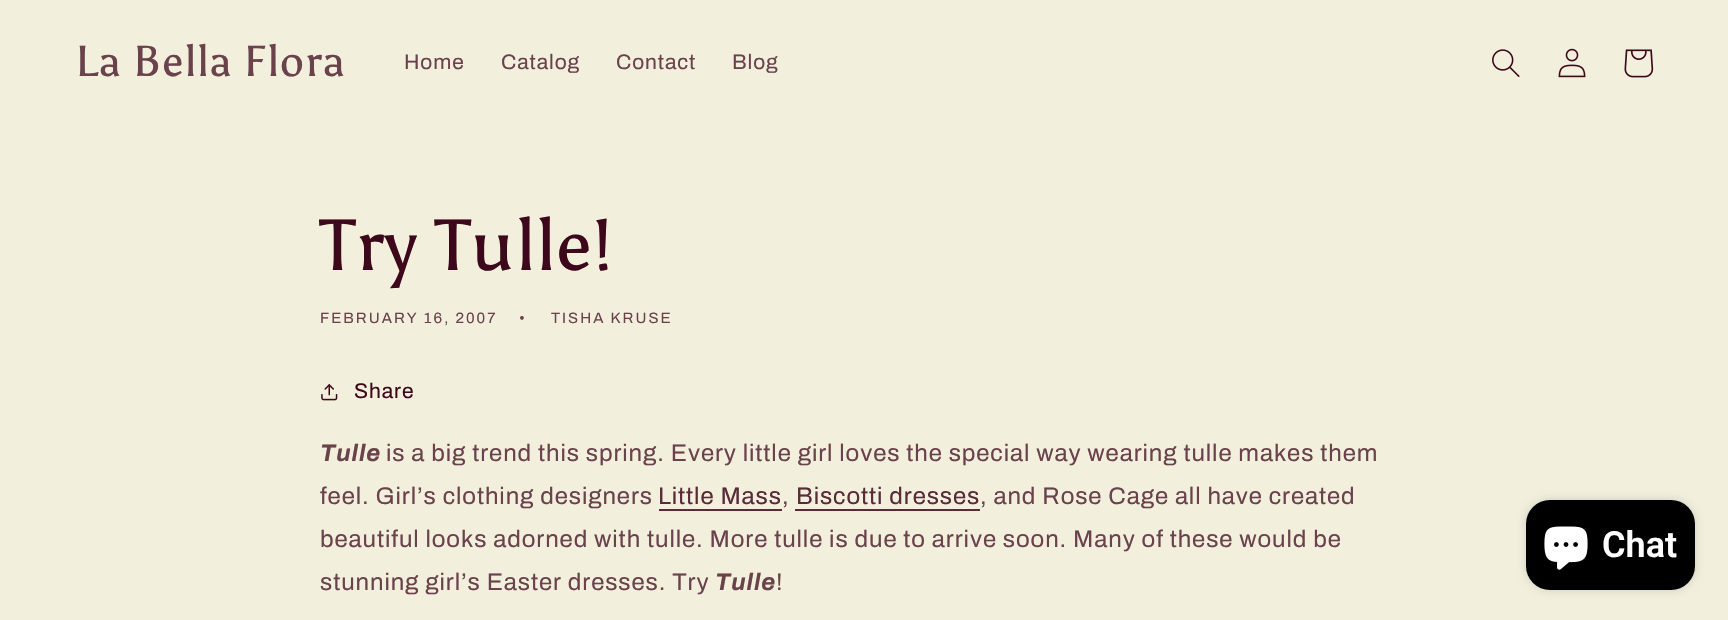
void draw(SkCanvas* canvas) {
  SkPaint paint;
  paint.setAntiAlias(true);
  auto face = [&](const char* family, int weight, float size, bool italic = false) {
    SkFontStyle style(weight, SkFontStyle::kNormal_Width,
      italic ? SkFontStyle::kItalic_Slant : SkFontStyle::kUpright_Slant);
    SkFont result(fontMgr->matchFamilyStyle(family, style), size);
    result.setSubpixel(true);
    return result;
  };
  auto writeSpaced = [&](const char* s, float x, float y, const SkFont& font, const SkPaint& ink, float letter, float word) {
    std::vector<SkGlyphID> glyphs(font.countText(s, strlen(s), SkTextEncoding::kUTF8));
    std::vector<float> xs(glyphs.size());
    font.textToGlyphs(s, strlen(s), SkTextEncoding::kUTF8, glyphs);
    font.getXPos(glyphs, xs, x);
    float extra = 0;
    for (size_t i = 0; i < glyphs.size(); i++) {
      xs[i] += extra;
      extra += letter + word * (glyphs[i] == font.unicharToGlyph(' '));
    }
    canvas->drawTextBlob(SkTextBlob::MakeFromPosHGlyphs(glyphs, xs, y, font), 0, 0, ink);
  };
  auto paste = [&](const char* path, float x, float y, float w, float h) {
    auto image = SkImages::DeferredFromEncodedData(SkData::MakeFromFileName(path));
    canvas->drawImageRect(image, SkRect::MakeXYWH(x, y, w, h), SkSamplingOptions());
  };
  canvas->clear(0xfff2efdd);
  paste("img/1.png", 1492, 49, 28, 28);
  paste("img/2.png", 1558, 48, 28, 30);
  paste("img/3.png", 1624, 49, 30, 29);
  paste("img/4.png", 321, 384, 17, 17);
  paint.setColor(0xff582b38);
  canvas->drawRect(SkRect::MakeXYWH(659, 509, 123, 2), paint);
  canvas->drawRect(SkRect::MakeXYWH(795, 509, 185, 2), paint);
  paint.setColor(0x26000000);
  paint.setMaskFilter(SkMaskFilter::MakeBlur(kNormal_SkBlurStyle, 4));
  canvas->drawRoundRect(SkRect::MakeXYWH(1526, 500, 169, 90), 24, 24, paint);
  paint.setMaskFilter(nullptr);
  paint.setColor(0xff000000);
  canvas->drawRoundRect(SkRect::MakeXYWH(1526, 500, 169, 90), 24, 24, paint);
  paste("img/5.png", 1544, 526, 44, 44);
  auto f0 = face("Asul", 400, 43.25f);
  paint.setColor(0xff6a424c);
  writeSpaced("La Bella Flora", 75, 76, f0, paint, 1.1f, 0);
  auto f1 = face("Archivo", 400, 21);
  {
    const struct { const char* s; float x, y; } items[] = {
      {"Home", 404, 69},
      {"Catalog", 501, 69},
      {"Contact", 616, 69},
      {"Blog", 732, 69},
    };
    for (auto [s, x, y] : items) {
      writeSpaced(s, x, y, f1, paint, 0.9f, 0);
    }
  }
  auto f2 = face("Asul", 400, 72);
  paint.setColor(0xff3d081b);
  writeSpaced("Try Tulle!", 320, 270, f2, paint, 1.1f, 0);
  auto f3 = face("Archivo", 400, 15);
  paint.setColor(0xff6a424c);
  {
    const struct { const char* s; float x, y; } items[] = {
      {"FEBRUARY 16, 2007", 320, 323},
      {"•", 519, 323},
      {"TISHA KRUSE", 551, 323},
    };
    for (auto [s, x, y] : items) {
      writeSpaced(s, x, y, f3, paint, 2, 0);
    }
  }
  paint.setColor(0xff3d081b);
  writeSpaced("Share", 354, 398, f1, paint, 0.9f, 0);
  auto f4 = face("Archivo", 700, 24, true);
  paint.setColor(0xff6a424c);
  writeSpaced("Tulle", 320, 461, f4, paint, 0.9f, 0);
  auto f5 = face("Archivo", 400, 24);
  writeSpaced("is a big trend this spring. Every little girl loves the special way wearing tulle makes them", 386, 461, f5, paint, 0.9f, 0);
  writeSpaced("feel. Girl’s clothing designers", 320, 504, f5, paint, 0.9f, 0);
  paint.setColor(0xff582b38);
  writeSpaced("Little Mass", 658, 504, f5, paint, 0.9f, 0);
  paint.setColor(0xff6a424c);
  writeSpaced(",", 782, 504, f5, paint, 0.9f, 0);
  paint.setColor(0xff582b38);
  writeSpaced("Biscotti dresses", 796, 504, f5, paint, 0.9f, 0);
  paint.setColor(0xff6a424c);
  {
    const struct { const char* s; float x, y; } items[] = {
      {", and Rose Cage all have created", 980, 504},
      {"beautiful looks adorned with tulle. More tulle is due to arrive soon. Many of these would be", 320, 547},
      {"stunning girl’s Easter dresses. Try", 320, 590},
    };
    for (auto [s, x, y] : items) {
      writeSpaced(s, x, y, f5, paint, 0.9f, 0);
    }
  }
  writeSpaced("Tulle", 715, 590, f4, paint, 0.9f, 0);
  writeSpaced("!", 776, 590, f5, paint, 0.9f, 0);
  auto f6 = face("Roboto", 600, 36);
  paint.setColor(0xffffffff);
  canvas->drawString("Chat", 1602, 557, f6, paint);
}
